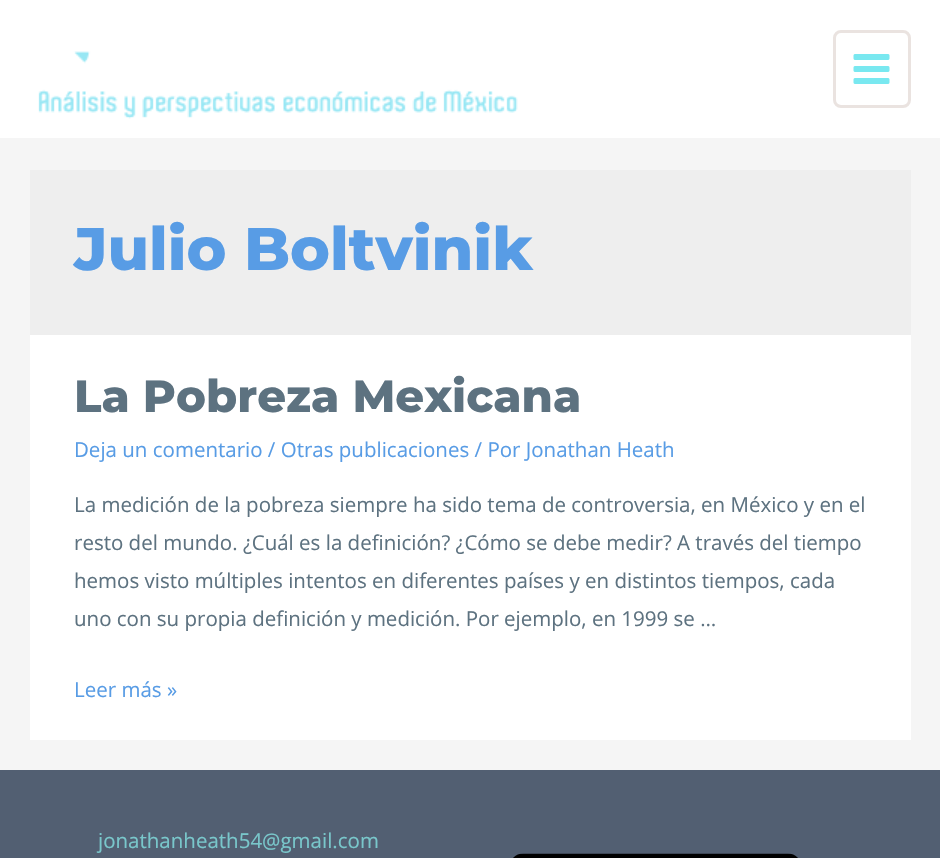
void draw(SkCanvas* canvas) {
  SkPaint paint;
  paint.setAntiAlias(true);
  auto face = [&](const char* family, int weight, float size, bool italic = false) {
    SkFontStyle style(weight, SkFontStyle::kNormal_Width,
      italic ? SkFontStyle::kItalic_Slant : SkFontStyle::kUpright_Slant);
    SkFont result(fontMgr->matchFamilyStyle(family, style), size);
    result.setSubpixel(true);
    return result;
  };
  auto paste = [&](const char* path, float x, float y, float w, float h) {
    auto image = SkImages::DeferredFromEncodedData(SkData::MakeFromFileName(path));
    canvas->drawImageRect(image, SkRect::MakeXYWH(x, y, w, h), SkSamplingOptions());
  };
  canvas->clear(0xfff5f5f5);
  paint.setColor(0xffffffff);
  canvas->drawRect(SkRect::MakeXYWH(0, 0, 940, 138), paint);
  paste("img/1.png", 38, 51, 480, 68);
  paint.setStroke(true);
  paint.setStrokeWidth(3);
  paint.setColor(0xffeae3e0);
  canvas->drawRoundRect(SkRect::MakeXYWH(834.5f, 31.5f, 75, 75), 6.5f, 6.5f, paint);
  paste("img/2.png", 853, 54, 37, 30);
  paint.setStroke(false);
  {
    const struct { float x, y, w, h; SkColor color; } items[] = {
      {30, 170, 881, 165, 0xffeeeeee},
      {30, 335, 881, 405, 0xffffffff},
      {0, 770, 940, 88, 0xff525f72},
    };
    for (auto [x, y, w, h, color] : items) {
      paint.setColor(color);
      canvas->drawRect(SkRect::MakeXYWH(x, y, w, h), paint);
    }
  }
  paste("img/3.png", 513, 853, 285, 5);
  auto f0 = face("Montserrat", 100, 60);
  paint.setColor(0xff589ce5);
  canvas->drawString("Julio Boltvinik", 74, 270, f0, paint);
  auto f1 = face("Montserrat", 100, 45);
  paint.setColor(0xff5d7280);
  canvas->drawString("La Pobreza Mexicana", 74, 412, f1, paint);
  auto f2 = face("Open Sans", 400, 20.5f);
  paint.setColor(0xff589ce5);
  canvas->drawString("Deja un comentario / Otras publicaciones / Por Jonathan Heath", 74, 457, f2, paint);
  paint.setColor(0xff5d7280);
  {
    const struct { const char* s; float x, y; } items[] = {
      {"La medición de la pobreza siempre ha sido tema de controversia, en México y en el", 74, 512},
      {"resto del mundo. ¿Cuál es la definición? ¿Cómo se debe medir? A través del tiempo", 74, 550},
      {"hemos visto múltiples intentos en diferentes países y en distintos tiempos, cada", 74, 588},
      {"uno con su propia definición y medición. Por ejemplo, en 1999 se …", 74, 626},
    };
    for (auto [s, x, y] : items) {
      canvas->drawString(s, x, y, f2, paint);
    }
  }
  paint.setColor(0xff589ce5);
  canvas->drawString("Leer más »", 74, 697, f2, paint);
  paint.setColor(0xff79c7cb);
  canvas->drawString("jonathanheath54@gmail.com", 98, 848, f2, paint);
}
